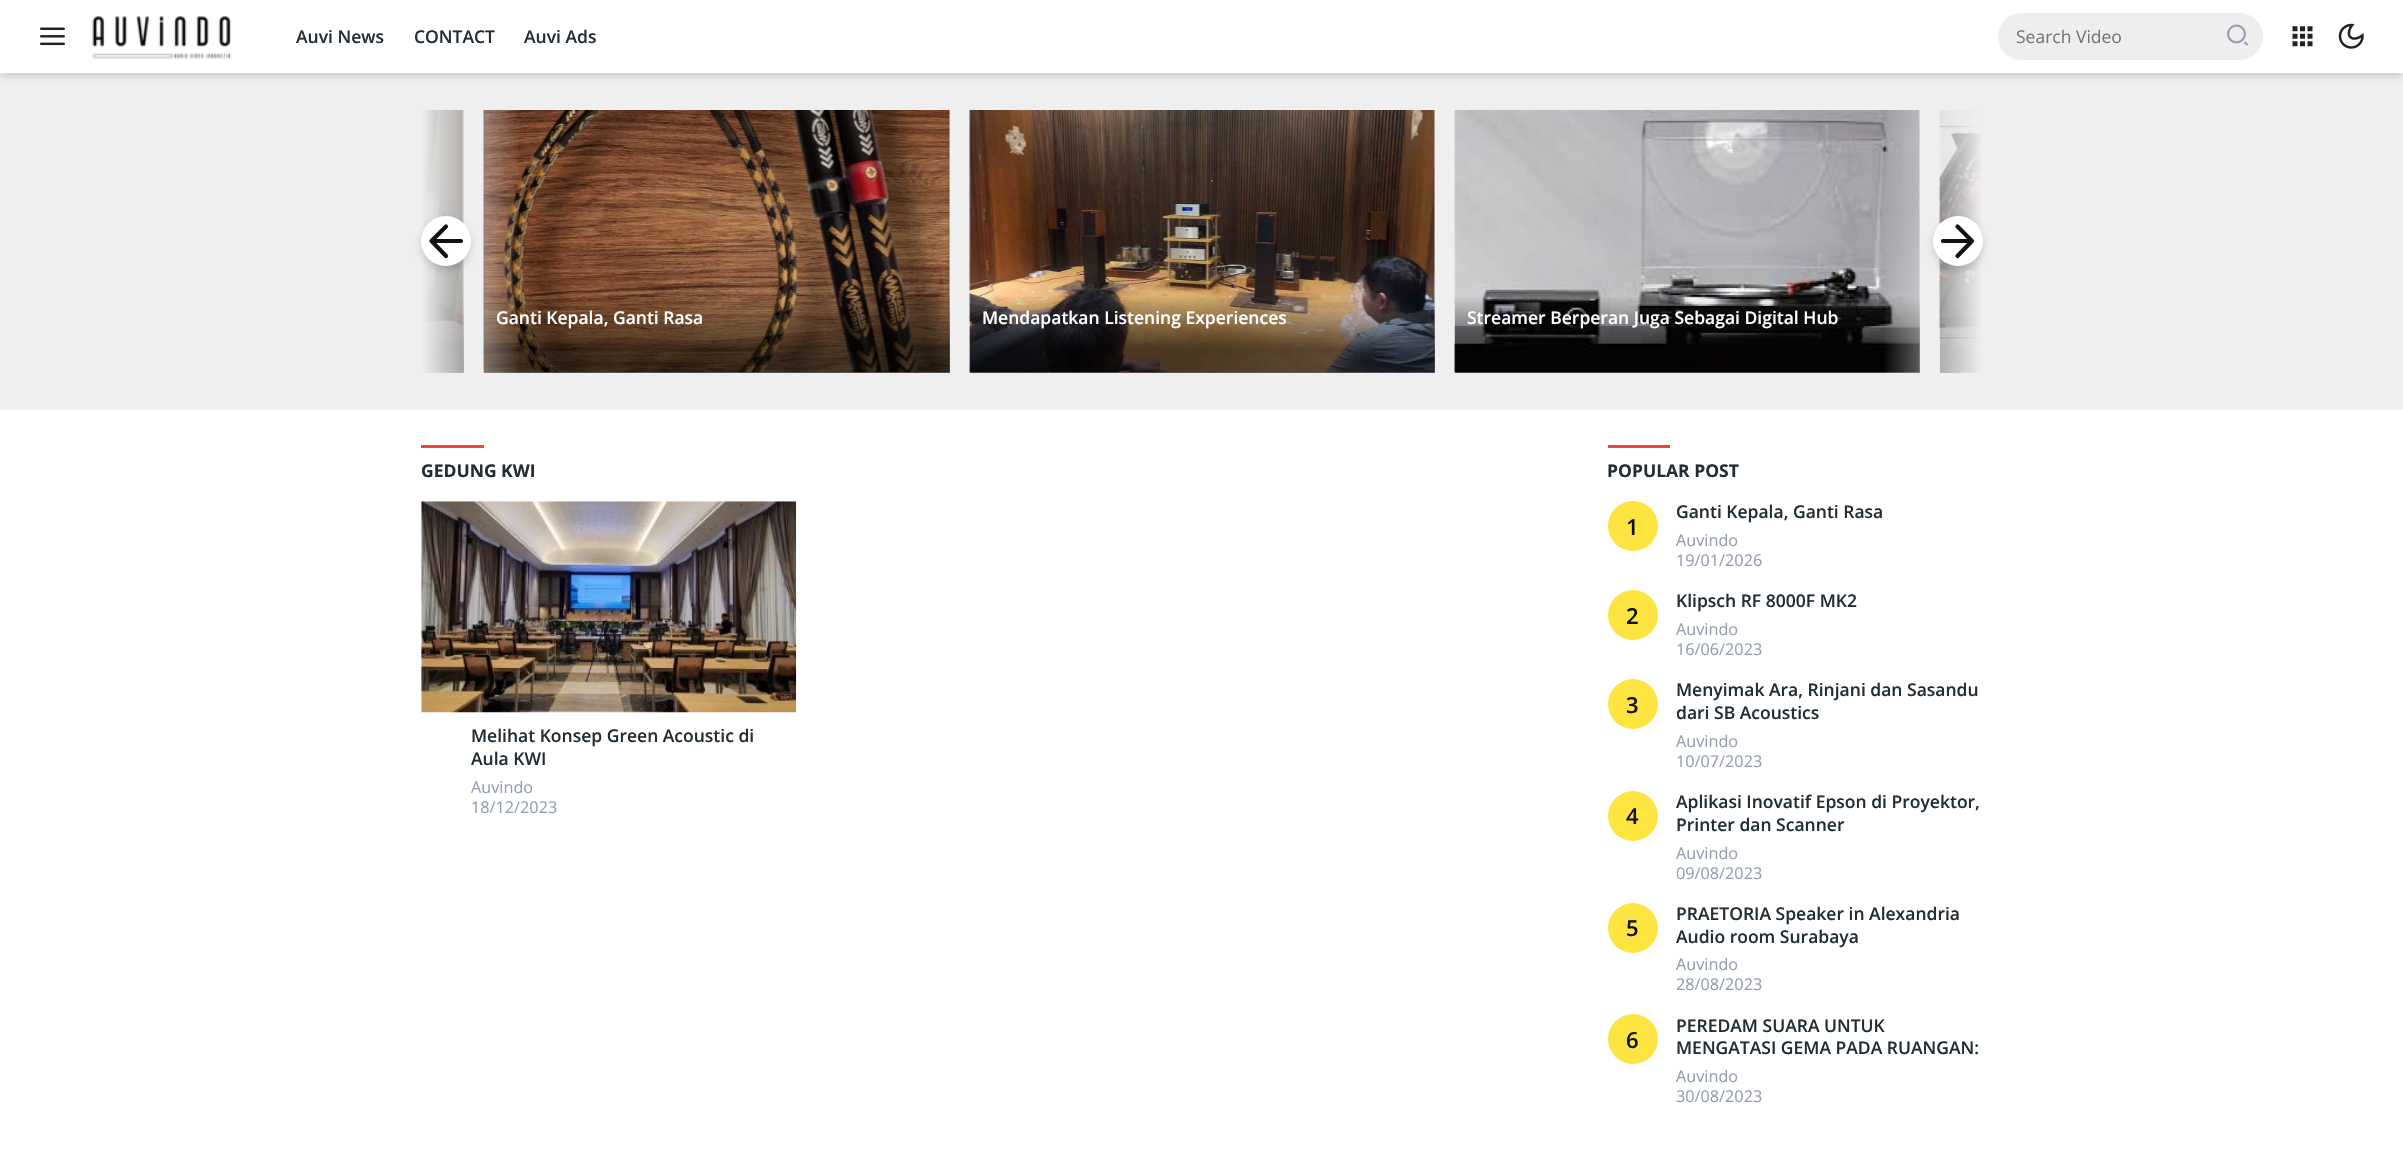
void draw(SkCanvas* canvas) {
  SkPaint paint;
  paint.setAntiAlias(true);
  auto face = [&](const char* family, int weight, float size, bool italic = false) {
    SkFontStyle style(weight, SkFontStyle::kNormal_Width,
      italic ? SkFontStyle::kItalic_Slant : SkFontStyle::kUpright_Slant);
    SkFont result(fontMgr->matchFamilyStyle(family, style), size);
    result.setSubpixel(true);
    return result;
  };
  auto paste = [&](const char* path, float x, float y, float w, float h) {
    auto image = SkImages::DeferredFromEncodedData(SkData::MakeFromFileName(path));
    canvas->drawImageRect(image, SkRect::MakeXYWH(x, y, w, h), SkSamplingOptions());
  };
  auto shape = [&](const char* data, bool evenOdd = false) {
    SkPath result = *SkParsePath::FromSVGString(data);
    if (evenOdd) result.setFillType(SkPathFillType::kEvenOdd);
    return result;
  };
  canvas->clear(0xffefefef);
  paint.setColor(0x33333333);
  paint.setMaskFilter(SkMaskFilter::MakeBlur(kNormal_SkBlurStyle, 4));
  canvas->drawRect(SkRect::MakeXYWH(0, 4, 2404, 72), paint);
  paint.setMaskFilter(nullptr);
  paint.setColor(0xffffffff);
  canvas->drawRect(SkRect::MakeXYWH(0, 0, 2403, 73), paint);
  paste("img/1.png", 40, 27, 25, 19);
  paste("img/2.png", 92, 16, 140, 43);
  paint.setColor(0xffeeeeee);
  canvas->drawRoundRect(SkRect::MakeXYWH(1998, 13, 265, 47), 23.5f, 23.5f, paint);
  paste("img/3.png", 2227, 24, 22, 22);
  paste("img/4.png", 2292, 26, 21, 21);
  paste("img/5.png", 2338, 23, 26, 26);
  paste("img/10.png", 1939, 110, 43, 263);
  paste("img/9.png", 1454, 110, 466, 263);
  {
    const SkColor colors[] = {0x00000000, 0x99000000};
    const float stops[] = {0, 0.7f};
    const SkPoint ends[] = {{1687, 295}, {1687, 373}};
    paint.setShader(SkGradientShader::MakeLinear(ends, colors, stops, 2, SkTileMode::kClamp));
    paint.setAlpha(255);
  }
  canvas->drawRect(SkRect::MakeXYWH(1455, 297, 465, 76), paint);
  {
    const SkColor colors[] = {0x00000000, 0x99000000};
    const float stops[] = {0, 0.7f};
    const SkPoint ends[] = {{2173, 295}, {2173, 373}};
    paint.setShader(SkGradientShader::MakeLinear(ends, colors, stops, 2, SkTileMode::kClamp));
    paint.setAlpha(255);
  }
  canvas->drawRect(SkRect::MakeXYWH(1940, 298, 42, 75), paint);
  {
    const SkColor colors[] = {0x00efefef, 0xffefefef};
    const float stops[] = {0, 1};
    const SkPoint ends[] = {{1883, 241}, {1983, 241}};
    paint.setShader(SkGradientShader::MakeLinear(ends, colors, stops, 2, SkTileMode::kClamp));
    paint.setAlpha(255);
  }
  canvas->drawRect(SkRect::MakeXYWH(1885, 110, 97, 263), paint);
  paint.setShader(nullptr);
  paint.setColor(0x33333333);
  paint.setMaskFilter(SkMaskFilter::MakeBlur(kNormal_SkBlurStyle, 4));
  canvas->drawRoundRect(SkRect::MakeXYWH(1933, 220, 50, 50), 25, 25, paint);
  paint.setMaskFilter(nullptr);
  paint.setColor(0xffffffff);
  canvas->drawCircle(1958, 241, 25, paint);
  paint.setStroke(true);
  paint.setStrokeWidth(4.2f);
  paint.setStrokeCap(SkPaint::kRound_Cap);
  paint.setStrokeJoin(SkPaint::kRound_Join);
  paint.setColor(0xff111111);
  canvas->drawPath(shape("M1943 241H1972M1957.5 226.5L1972 241L1957.5 256"), paint);
  paste("img/6.png", 422, 110, 42, 263);
  paint.setStroke(false);
  {
    const SkColor colors[] = {0x00000000, 0x99000000};
    const float stops[] = {0, 0.7f};
    const SkPoint ends[] = {{231, 295}, {231, 373}};
    paint.setShader(SkGradientShader::MakeLinear(ends, colors, stops, 2, SkTileMode::kClamp));
    paint.setAlpha(255);
  }
  canvas->drawRect(SkRect::MakeXYWH(422, 297, 42, 76), paint);
  paste("img/7.png", 483, 110, 467, 263);
  {
    const SkColor colors[] = {0x00000000, 0x99000000};
    const float stops[] = {0, 0.7f};
    const SkPoint ends[] = {{716, 295}, {716, 373}};
    paint.setShader(SkGradientShader::MakeLinear(ends, colors, stops, 2, SkTileMode::kClamp));
    paint.setAlpha(255);
  }
  canvas->drawRect(SkRect::MakeXYWH(484, 297, 466, 76), paint);
  paste("img/8.png", 969, 110, 466, 263);
  {
    const SkColor colors[] = {0x00000000, 0x99000000};
    const float stops[] = {0, 0.7f};
    const SkPoint ends[] = {{1202, 295}, {1202, 373}};
    paint.setShader(SkGradientShader::MakeLinear(ends, colors, stops, 2, SkTileMode::kClamp));
    paint.setAlpha(255);
  }
  canvas->drawRect(SkRect::MakeXYWH(970, 297, 465, 76), paint);
  paint.setShader(nullptr);
  paint.setColor(0xffffffff);
  canvas->drawRect(SkRect::MakeXYWH(0, 410, 2403, 741), paint);
  paint.setColor(0xfff44336);
  canvas->drawRect(SkRect::MakeXYWH(421, 445, 63, 3), paint);
  paste("img/11.png", 421, 501, 376, 212);
  canvas->drawRect(SkRect::MakeXYWH(1608, 445, 62, 3), paint);
  paint.setColor(0xfffee440);
  canvas->drawCircle(1633, 526, 25, paint);
  canvas->drawCircle(1633, 615, 25, paint);
  canvas->drawCircle(1633, 704, 25, paint);
  canvas->drawCircle(1633, 816, 25, paint);
  canvas->drawCircle(1633, 928, 25, paint);
  canvas->drawCircle(1633, 1039, 25, paint);
  auto f0 = face("Open Sans", 600, 17.5f);
  paint.setColor(0xff222d34);
  {
    const struct { const char* s; float x, y; } items[] = {
      {"Auvi News", 296, 43},
      {"CONTACT", 414, 43},
      {"Auvi Ads", 524, 43},
    };
    for (auto [s, x, y] : items) {
      canvas->drawString(s, x, y, f0, paint);
    }
  }
  auto f1 = face("Open Sans", 400, 17.5f);
  paint.setColor(0xff757575);
  canvas->drawString("Search Video", 2016, 43, f1, paint);
  paint.setColor(0xffffffff);
  canvas->drawString("Ganti Kepala, Ganti Rasa", 496, 324, f0, paint);
  {
    const SkColor colors[] = {0x00efefef, 0xffefefef};
    const float stops[] = {0, 1};
    const SkPoint ends[] = {{521, 241}, {421, 241}};
    paint.setShader(SkGradientShader::MakeLinear(ends, colors, stops, 2, SkTileMode::kClamp));
    paint.setAlpha(255);
  }
  canvas->drawRect(SkRect::MakeXYWH(422, 110, 97, 263), paint);
  paint.setShader(nullptr);
  paint.setColor(0x33333333);
  paint.setMaskFilter(SkMaskFilter::MakeBlur(kNormal_SkBlurStyle, 4));
  canvas->drawRoundRect(SkRect::MakeXYWH(421, 220, 50, 50), 25, 25, paint);
  paint.setMaskFilter(nullptr);
  paint.setColor(0xffffffff);
  canvas->drawCircle(446, 241, 25, paint);
  paint.setStroke(true);
  paint.setColor(0xff111111);
  canvas->drawPath(shape("M461 241H431.5M446 256L431.5 241L446 226.5"), paint);
  paint.setStroke(false);
  paint.setColor(0xffffffff);
  canvas->drawString("Mendapatkan Listening Experiences", 982, 324, f0, paint);
  canvas->drawString("Streamer Berperan Juga Sebagai Digital Hub", 1467, 324, f0, paint);
  auto f2 = face("Open Sans", 700, 17.5f);
  paint.setColor(0xff222d34);
  canvas->drawString("GEDUNG KWI", 421, 477, f2, paint);
  canvas->drawString("Melihat Konsep Green Acoustic di", 471, 742, f0, paint);
  canvas->drawString("Aula KWI", 471, 765, f0, paint);
  auto f3 = face("Open Sans", 400, 16.25f);
  paint.setColor(0xff949cb0);
  canvas->drawString("Auvindo", 471, 793, f3, paint);
  canvas->drawString("18/12/2023", 471, 813, f3, paint);
  paint.setColor(0xff222d34);
  canvas->drawString("POPULAR POST", 1607, 477, f2, paint);
  auto f4 = face("Open Sans", 600, 22);
  paint.setColor(0xff111111);
  canvas->drawString("1", 1626, 535, f4, paint);
  paint.setColor(0xff222d34);
  canvas->drawString("Ganti Kepala, Ganti Rasa", 1676, 518, f0, paint);
  paint.setColor(0xff949cb0);
  canvas->drawString("Auvindo", 1676, 546, f3, paint);
  canvas->drawString("19/01/2026", 1676, 566, f3, paint);
  paint.setColor(0xff111111);
  canvas->drawString("2", 1626, 624, f4, paint);
  paint.setColor(0xff222d34);
  canvas->drawString("Klipsch RF 8000F MK2", 1676, 607, f0, paint);
  paint.setColor(0xff949cb0);
  canvas->drawString("Auvindo", 1676, 635, f3, paint);
  canvas->drawString("16/06/2023", 1676, 655, f3, paint);
  paint.setColor(0xff111111);
  canvas->drawString("3", 1626, 713, f4, paint);
  paint.setColor(0xff222d34);
  canvas->drawString("Menyimak Ara, Rinjani dan Sasandu", 1676, 696, f0, paint);
  canvas->drawString("dari SB Acoustics", 1676, 719, f0, paint);
  paint.setColor(0xff949cb0);
  canvas->drawString("Auvindo", 1676, 747, f3, paint);
  canvas->drawString("10/07/2023", 1676, 767, f3, paint);
  paint.setColor(0xff111111);
  canvas->drawString("4", 1626, 824, f4, paint);
  paint.setColor(0xff222d34);
  canvas->drawString("Aplikasi Inovatif Epson di Proyektor,", 1676, 808, f0, paint);
  canvas->drawString("Printer dan Scanner", 1676, 831, f0, paint);
  paint.setColor(0xff949cb0);
  canvas->drawString("Auvindo", 1676, 859, f3, paint);
  canvas->drawString("09/08/2023", 1676, 879, f3, paint);
  paint.setColor(0xff111111);
  canvas->drawString("5", 1626, 936, f4, paint);
  paint.setColor(0xff222d34);
  canvas->drawString("PRAETORIA Speaker in Alexandria", 1676, 920, f0, paint);
  canvas->drawString("Audio room Surabaya", 1676, 943, f0, paint);
  paint.setColor(0xff949cb0);
  canvas->drawString("Auvindo", 1676, 970, f3, paint);
  canvas->drawString("28/08/2023", 1676, 990, f3, paint);
  paint.setColor(0xff111111);
  canvas->drawString("6", 1626, 1048, f4, paint);
  paint.setColor(0xff222d34);
  canvas->drawString("PEREDAM SUARA UNTUK", 1676, 1032, f0, paint);
  canvas->drawString("MENGATASI GEMA PADA RUANGAN:", 1676, 1054, f0, paint);
  paint.setColor(0xff949cb0);
  canvas->drawString("Auvindo", 1676, 1082, f3, paint);
  canvas->drawString("30/08/2023", 1676, 1102, f3, paint);
}
